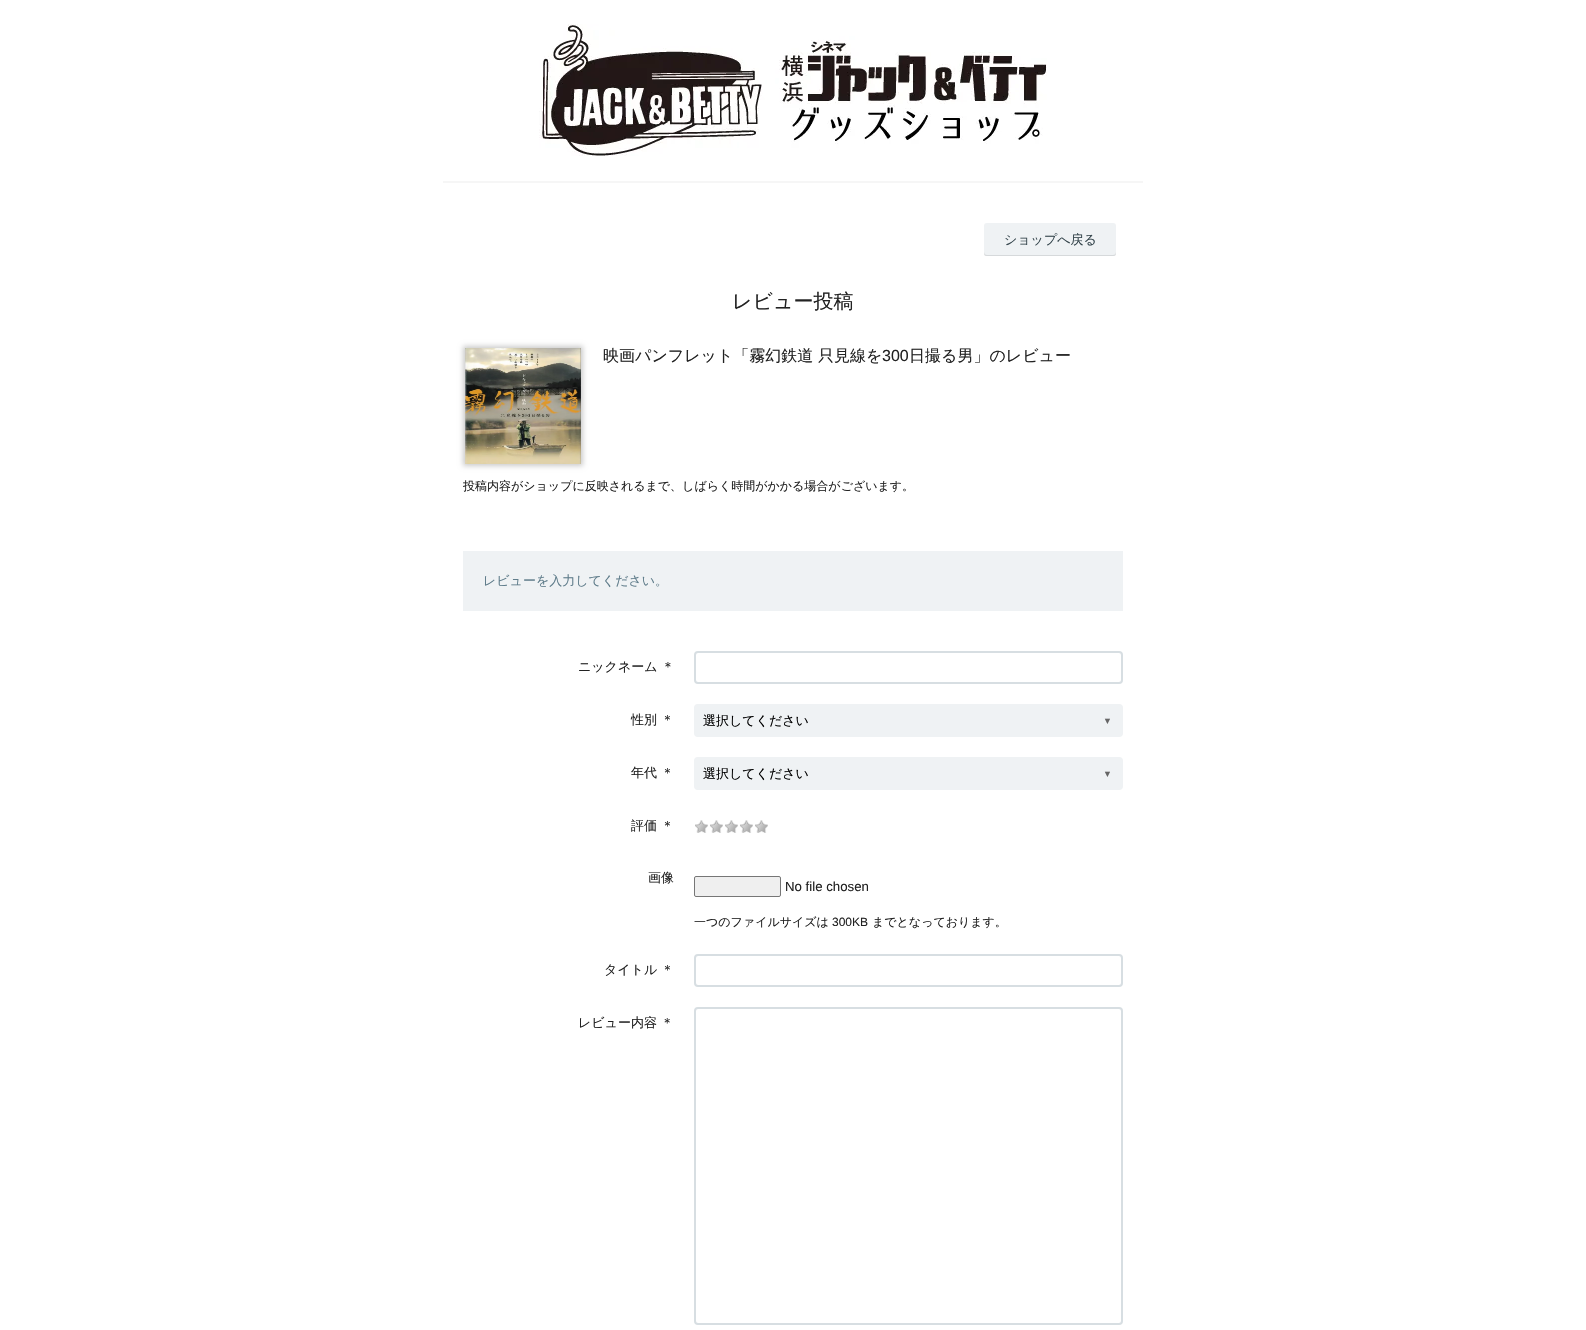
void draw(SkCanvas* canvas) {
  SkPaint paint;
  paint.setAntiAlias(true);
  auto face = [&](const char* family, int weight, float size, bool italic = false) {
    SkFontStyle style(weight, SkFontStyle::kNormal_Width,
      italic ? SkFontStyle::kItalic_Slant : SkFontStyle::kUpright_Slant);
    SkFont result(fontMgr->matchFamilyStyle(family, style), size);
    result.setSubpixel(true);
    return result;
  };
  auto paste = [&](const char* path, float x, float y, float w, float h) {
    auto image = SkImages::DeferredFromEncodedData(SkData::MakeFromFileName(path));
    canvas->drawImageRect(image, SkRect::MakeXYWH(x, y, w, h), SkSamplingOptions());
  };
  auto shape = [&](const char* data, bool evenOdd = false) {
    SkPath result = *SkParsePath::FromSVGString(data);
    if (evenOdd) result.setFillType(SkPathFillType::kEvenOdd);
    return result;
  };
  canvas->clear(0xffffffff);
  paste("img/1.png", 539, 24, 508, 132);
  paint.setColor(0xfff6f6f6);
  canvas->drawRect(SkRect::MakeXYWH(443, 181, 700, 2), paint);
  paint.setColor(0xffeff2f4);
  canvas->drawRoundRect(SkRect::MakeXYWH(984, 223, 132, 33), 3, 3, paint);
  paint.setColor(0x1a000000);
  canvas->drawPath(shape("M984 252C984 254 984 256 986 256H1114C1116 256 1116 254 1116 252C1116 253 1115 255 1113 255H987C985 255 984 253 984 252Z"), paint);
  paint.setColor(0x33000000);
  paint.setMaskFilter(SkMaskFilter::MakeBlur(kNormal_SkBlurStyle, 2.5f));
  canvas->drawRect(SkRect::MakeXYWH(463, 346, 120, 120), paint);
  paint.setMaskFilter(nullptr);
  paste("img/2.png", 465, 348, 116, 116);
  paint.setColor(0xffeff2f4);
  canvas->drawRect(SkRect::MakeXYWH(463, 551, 660, 60), paint);
  paint.setStroke(true);
  paint.setStrokeWidth(2);
  paint.setColor(0xffd7dee2);
  canvas->drawRoundRect(SkRect::MakeXYWH(695, 652, 427, 31), 3, 3, paint);
  paint.setStroke(false);
  paint.setColor(0xffeff2f4);
  canvas->drawRoundRect(SkRect::MakeXYWH(695, 705, 427, 31), 3, 3, paint);
  paint.setStroke(true);
  canvas->drawRoundRect(SkRect::MakeXYWH(695, 705, 427, 31), 3, 3, paint);
  paint.setStroke(false);
  canvas->drawRoundRect(SkRect::MakeXYWH(695, 758, 427, 31), 3, 3, paint);
  paint.setStroke(true);
  canvas->drawRoundRect(SkRect::MakeXYWH(695, 758, 427, 31), 3, 3, paint);
  paste("img/3.png", 695, 820, 13, 13);
  paste("img/3.png", 710, 820, 13, 13);
  paste("img/3.png", 725, 820, 13, 13);
  paste("img/3.png", 740, 820, 13, 13);
  paste("img/3.png", 755, 820, 13, 13);
  paint.setStroke(false);
  paint.setColor(0xffefefef);
  canvas->drawRoundRect(SkRect::MakeXYWH(694.5f, 876.5f, 86, 20), 1.5f, 1.5f, paint);
  paint.setStroke(true);
  paint.setStrokeWidth(1);
  paint.setColor(0xff767676);
  canvas->drawRoundRect(SkRect::MakeXYWH(694.5f, 876.5f, 86, 20), 1.5f, 1.5f, paint);
  paint.setStrokeWidth(2);
  paint.setColor(0xffd7dee2);
  canvas->drawRoundRect(SkRect::MakeXYWH(695, 955, 427, 31), 3, 3, paint);
  canvas->drawRoundRect(SkRect::MakeXYWH(695, 1008, 427, 316), 3, 3, paint);
  auto f0 = face("WenQuanYi Zen Hei", 500, 13);
  paint.setStroke(false);
  paint.setColor(0xff35454c);
  canvas->drawString("ショップへ戻る", 1004, 244, f0, paint);
  auto f1 = face("WenQuanYi Zen Hei", 500, 20);
  paint.setColor(0xff222222);
  canvas->drawString("レビュー投稿", 732, 308, f1, paint);
  auto f2 = face("WenQuanYi Zen Hei", 500, 16);
  canvas->drawString("映画パンフレット「霧幻鉄道 只見線を", 603, 361, f2, paint);
  auto f3 = face("Liberation Sans", 400, 16);
  canvas->drawString("300", 882, 361, f3, paint);
  canvas->drawString("日撮る男」のレビュー", 909, 361, f2, paint);
  auto f4 = face("WenQuanYi Zen Hei", 500, 12);
  canvas->drawString("投稿内容がショップに反映されるまで、しばらく時間がかかる場合がございます。", 463, 490, f4, paint);
  paint.setColor(0xff607d8b);
  canvas->drawString("レビューを入力してください。", 483, 585, f0, paint);
  paint.setColor(0xff222222);
  canvas->drawString("ニックネーム ＊", 578, 671, f0, paint);
  canvas->drawString("性別 ＊", 631, 724, f0, paint);
  paint.setColor(0xff000000);
  canvas->drawString("選択してください", 703, 725, f0, paint);
  auto f5 = face("Liberation Sans", 400, 9);
  paint.setColor(0xff666666);
  canvas->drawString("▼", 1103, 724, f5, paint);
  paint.setColor(0xff222222);
  canvas->drawString("年代 ＊", 631, 777, f0, paint);
  paint.setColor(0xff000000);
  canvas->drawString("選択してください", 703, 778, f0, paint);
  paint.setColor(0xff666666);
  canvas->drawString("▼", 1103, 777, f5, paint);
  paint.setColor(0xff222222);
  canvas->drawString("評価 ＊", 631, 830, f0, paint);
  canvas->drawString("画像", 648, 882, f0, paint);
  auto f6 = face("Liberation Sans", 400, 13.25f);
  canvas->drawString("No file chosen", 785, 891, f6, paint);
  canvas->drawString("一つのファイルサイズは", 694, 926, f4, paint);
  auto f7 = face("Liberation Sans", 400, 12);
  canvas->drawString("300KB", 832, 926, f7, paint);
  canvas->drawString("までとなっております。", 872, 926, f4, paint);
  canvas->drawString("タイトル ＊", 604, 974, f0, paint);
  canvas->drawString("レビュー内容 ＊", 578, 1027, f0, paint);
}
